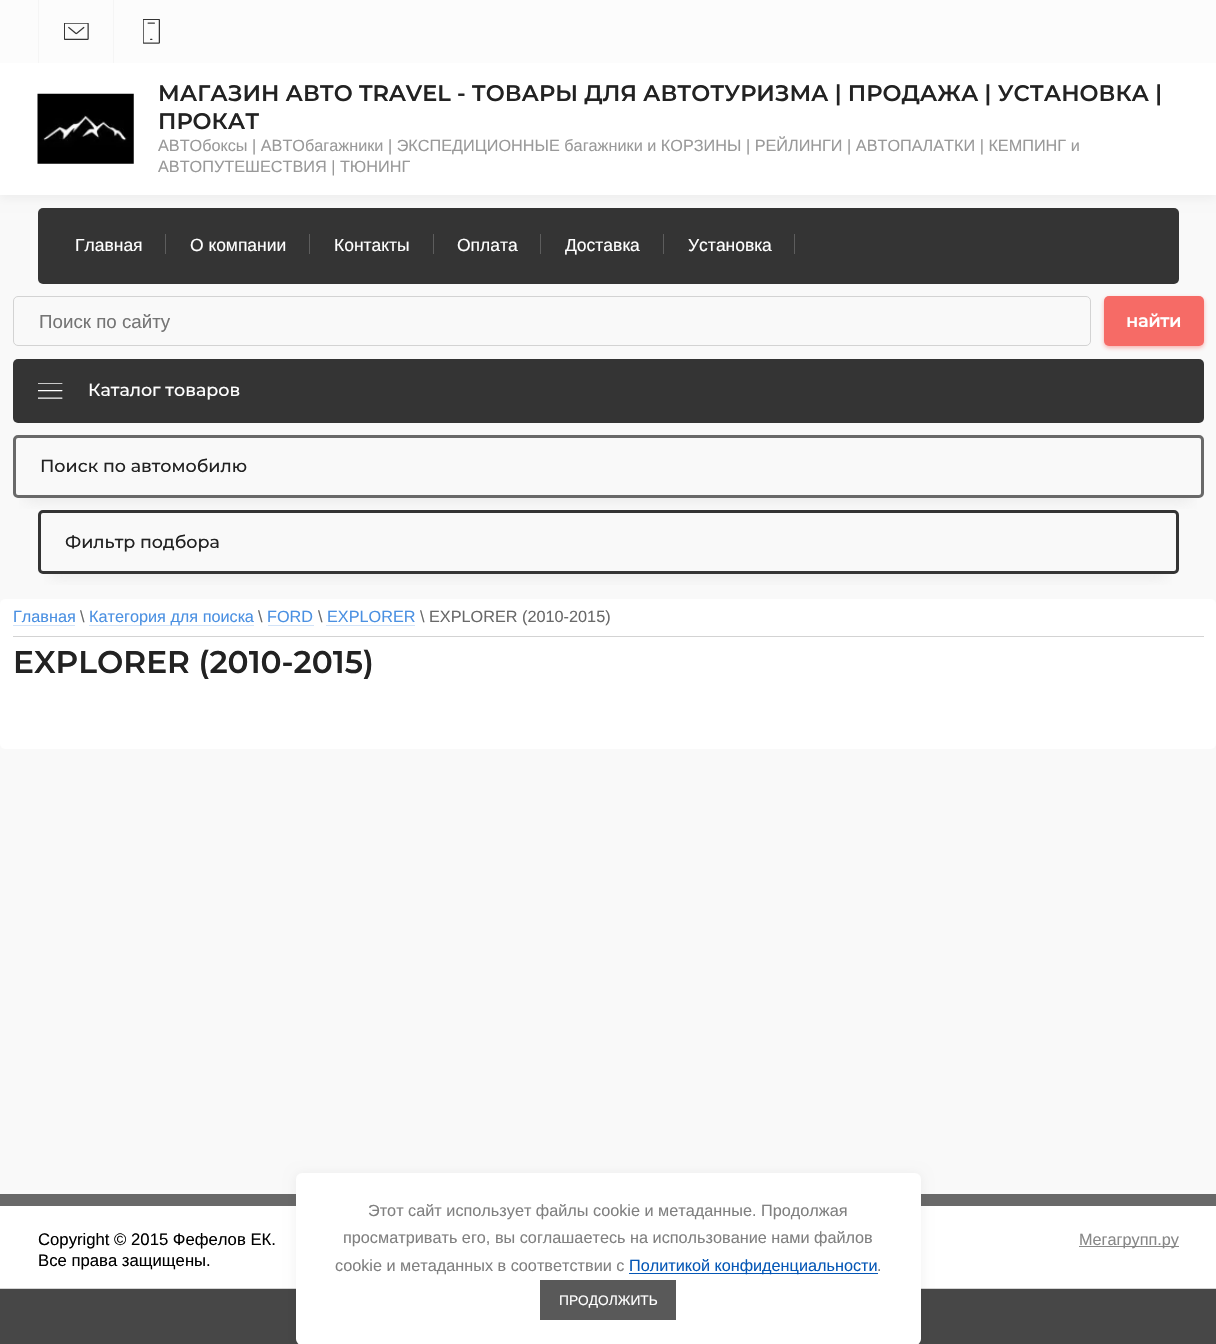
void draw(SkCanvas* canvas) {
  SkPaint paint;
  paint.setAntiAlias(true);
  auto face = [&](const char* family, int weight, float size, bool italic = false) {
    SkFontStyle style(weight, SkFontStyle::kNormal_Width,
      italic ? SkFontStyle::kItalic_Slant : SkFontStyle::kUpright_Slant);
    SkFont result(fontMgr->matchFamilyStyle(family, style), size);
    result.setSubpixel(true);
    return result;
  };
  auto paste = [&](const char* path, float x, float y, float w, float h) {
    auto image = SkImages::DeferredFromEncodedData(SkData::MakeFromFileName(path));
    canvas->drawImageRect(image, SkRect::MakeXYWH(x, y, w, h), SkSamplingOptions());
  };
  canvas->clear(0xfff9f9f9);
  paint.setColor(0x0d000000);
  paint.setMaskFilter(SkMaskFilter::MakeBlur(kNormal_SkBlurStyle, 5));
  canvas->drawRect(SkRect::MakeXYWH(0, 65, 1216, 133), paint);
  paint.setMaskFilter(nullptr);
  paint.setColor(0xfffcfcfc);
  canvas->drawRect(SkRect::MakeXYWH(0, 0, 1216, 63), paint);
  paste("img/1.png", 64, 23, 25, 17);
  paint.setColor(0xfff5f5f5);
  canvas->drawRect(SkRect::MakeXYWH(38, 0, 1, 63), paint);
  paste("img/2.png", 143, 19, 17, 25);
  canvas->drawRect(SkRect::MakeXYWH(113, 0, 1, 63), paint);
  paint.setColor(0xffffffff);
  canvas->drawRect(SkRect::MakeXYWH(0, 63, 1216, 132), paint);
  paste("img/3.png", 37, 93, 97, 71);
  paint.setColor(0xff343434);
  canvas->drawRoundRect(SkRect::MakeXYWH(38, 208, 1141, 76), 5, 5, paint);
  {
    const struct { float x, y, w, h; SkColor color; } items[] = {
      {165, 234, 1, 20, 0xff5d5d5d},
      {309, 234, 1, 20, 0xff5d5d5d},
      {433, 234, 1, 20, 0xff5d5d5d},
      {540, 234, 1, 20, 0xff5d5d5d},
      {663, 234, 1, 20, 0xff5d5d5d},
      {794, 234, 1, 20, 0xff5d5d5d},
    };
    for (auto [x, y, w, h, color] : items) {
      paint.setColor(color);
      canvas->drawRect(SkRect::MakeXYWH(x, y, w, h), paint);
    }
  }
  paint.setStroke(true);
  paint.setStrokeWidth(1);
  paint.setColor(0xffd3d3d3);
  canvas->drawRoundRect(SkRect::MakeXYWH(13.5f, 296.5f, 1077, 49), 4.5f, 4.5f, paint);
  paint.setStroke(false);
  paint.setColor(0x80f66b66);
  paint.setMaskFilter(SkMaskFilter::MakeBlur(kNormal_SkBlurStyle, 2));
  canvas->drawRoundRect(SkRect::MakeXYWH(1104, 298, 100, 50), 5, 5, paint);
  paint.setMaskFilter(nullptr);
  paint.setColor(0xfff66b66);
  canvas->drawRoundRect(SkRect::MakeXYWH(1104, 296, 100, 50), 5, 5, paint);
  paint.setColor(0xff343434);
  canvas->drawRoundRect(SkRect::MakeXYWH(13, 359, 1191, 64), 5, 5, paint);
  paste("img/4.png", 38, 383, 25, 16);
  canvas->save();
  canvas->clipRect(SkRect::MakeXYWH(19, 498, 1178, 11));
  paint.setColor(0x298a8a8a);
  paint.setMaskFilter(SkMaskFilter::MakeBlur(kNormal_SkBlurStyle, 7.5f));
  canvas->drawRect(SkRect::MakeXYWH(25, 463, 1166, 37), paint);
  paint.setMaskFilter(nullptr);
  canvas->restore();
  paint.setStroke(true);
  paint.setStrokeWidth(3);
  paint.setColor(0xff696969);
  canvas->drawRoundRect(SkRect::MakeXYWH(14.5f, 436.5f, 1188, 60), 3.5f, 3.5f, paint);
  canvas->save();
  canvas->clipRect(SkRect::MakeXYWH(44, 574, 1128, 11));
  paint.setStroke(false);
  paint.setColor(0x298a8a8a);
  paint.setMaskFilter(SkMaskFilter::MakeBlur(kNormal_SkBlurStyle, 7.5f));
  canvas->drawRect(SkRect::MakeXYWH(50, 538, 1116, 38), paint);
  paint.setMaskFilter(nullptr);
  canvas->restore();
  paint.setStroke(true);
  paint.setColor(0xff343434);
  canvas->drawRoundRect(SkRect::MakeXYWH(39.5f, 511.5f, 1138, 61), 3.5f, 3.5f, paint);
  paint.setStroke(false);
  paint.setColor(0xffffffff);
  canvas->drawRoundRect(SkRect::MakeXYWH(0, 599, 1216, 150), 5, 5, paint);
  {
    const struct { float x, y, w, h; SkColor color; } items[] = {
      {13, 636, 1191, 1, 0xffd3d3d3},
      {13, 625, 62, 1, 0xffd2e3f8},
      {268, 625, 46, 1, 0xffd2e3f8},
      {326, 625, 89, 1, 0xffd2e3f8},
      {0, 1288, 1216, 1, 0xffd4d4d4},
      {0, 1206, 1216, 82, 0xffffffff},
      {0, 1289, 1216, 55, 0xff474747},
      {0, 1194, 1216, 12, 0xff696969},
    };
    for (auto [x, y, w, h, color] : items) {
      paint.setColor(color);
      canvas->drawRect(SkRect::MakeXYWH(x, y, w, h), paint);
    }
  }
  paint.setColor(0x0f000000);
  paint.setMaskFilter(SkMaskFilter::MakeBlur(kNormal_SkBlurStyle, 6));
  canvas->drawRoundRect(SkRect::MakeXYWH(296, 1174, 625, 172), 6, 6, paint);
  paint.setMaskFilter(nullptr);
  paint.setColor(0xffffffff);
  canvas->drawRoundRect(SkRect::MakeXYWH(296, 1173, 625, 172), 6, 6, paint);
  {
    const struct { float x, y, w, h; SkColor color; } items[] = {
      {629, 1273, 249, 1, 0xff0557b6},
      {540, 1280, 136, 40, 0xff595959},
      {1079, 1246, 100, 1, 0xff888888},
    };
    for (auto [x, y, w, h, color] : items) {
      paint.setColor(color);
      canvas->drawRect(SkRect::MakeXYWH(x, y, w, h), paint);
    }
  }
  auto f0 = face("Montserrat", 600, 22.5f);
  paint.setColor(0xff222222);
  canvas->drawString("МАГАЗИН АВТО TRAVEL - ТОВАРЫ ДЛЯ АВТОТУРИЗМА | ПРОДАЖА | УСТАНОВКА |", 158, 101, f0, paint);
  canvas->drawString("ПРОКАТ", 158, 129, f0, paint);
  auto f1 = face("Liberation Sans", 400, 16.25f);
  paint.setColor(0xff999999);
  canvas->drawString("АВТОбоксы | АВТОбагажники | ЭКСПЕДИЦИОННЫЕ багажники и КОРЗИНЫ | РЕЙЛИНГИ | АВТОПАЛАТКИ | КЕМПИНГ и", 158, 151, f1, paint);
  canvas->drawString("АВТОПУТЕШЕСТВИЯ | ТЮНИНГ", 158, 172, f1, paint);
  auto f2 = face("Liberation Sans", 400, 17.5f);
  paint.setColor(0xffffffff);
  {
    const struct { const char* s; float x, y; } items[] = {
      {"Главная", 75, 251},
      {"О компании", 190, 251},
      {"Контакты", 334, 251},
      {"Оплата", 457, 251},
      {"Доставка", 565, 251},
      {"Установка", 688, 251},
    };
    for (auto [s, x, y] : items) {
      canvas->drawString(s, x, y, f2, paint);
    }
  }
  auto f3 = face("Liberation Sans", 400, 18.75f);
  paint.setColor(0xff757575);
  canvas->drawString("Поиск по сайту", 39, 328, f3, paint);
  auto f4 = face("Montserrat", 700, 17.5f);
  paint.setColor(0xffffffff);
  canvas->drawString("найти", 1126, 327, f4, paint);
  auto f5 = face("Montserrat", 500, 17.5f);
  canvas->drawString("Каталог товаров", 88, 396, f5, paint);
  paint.setColor(0xff222222);
  canvas->drawString("Поиск по автомобилю", 40, 472, f5, paint);
  canvas->drawString("Фильтр подбора", 65, 548, f5, paint);
  paint.setColor(0xff4a90e2);
  canvas->drawString("Главная", 13, 622, f1, paint);
  paint.setColor(0xff696969);
  canvas->drawString("\\", 80, 622, f1, paint);
  paint.setColor(0xff4a90e2);
  canvas->drawString("Категория для поиска", 89, 622, f1, paint);
  paint.setColor(0x404a90e2);
  canvas->drawRect(SkRect::MakeXYWH(89, 625, 165, 1), paint);
  paint.setColor(0xff696969);
  canvas->drawString("\\", 258, 622, f1, paint);
  paint.setColor(0xff4a90e2);
  canvas->drawString("FORD", 267, 622, f1, paint);
  paint.setColor(0xff696969);
  canvas->drawString("\\", 318, 622, f1, paint);
  paint.setColor(0xff4a90e2);
  canvas->drawString("EXPLORER", 327, 622, f1, paint);
  paint.setColor(0xff696969);
  canvas->drawString("\\ EXPLORER (2010-2015)", 420, 622, f1, paint);
  auto f6 = face("Montserrat", 600, 31.25f);
  paint.setColor(0xff222222);
  canvas->drawString("EXPLORER (2010-2015)", 13, 673, f6, paint);
  paint.setColor(0xff808080);
  {
    const struct { const char* s; float x, y; } items[] = {
      {"Этот сайт использует файлы cookie и метаданные. Продолжая", 368, 1216},
      {"просматривать его, вы соглашаетесь на использование нами файлов", 343, 1243},
      {"cookie и метаданных в соответствии с", 335, 1271},
    };
    for (auto [s, x, y] : items) {
      canvas->drawString(s, x, y, f1, paint);
    }
  }
  paint.setColor(0xff0557b6);
  canvas->drawString("Политикой конфиденциальности", 629, 1271, f1, paint);
  paint.setColor(0xff808080);
  canvas->drawString(".", 877, 1271, f1, paint);
  auto f7 = face("Liberation Sans", 400, 13.75f);
  paint.setColor(0xffffffff);
  canvas->drawString("ПРОДОЛЖИТЬ", 559, 1305, f7, paint);
  auto f8 = face("Liberation Sans", 400, 16.7f);
  paint.setColor(0xff000000);
  canvas->drawString("Copyright © 2015 Фефелов ЕК.", 38, 1245, f8, paint);
  canvas->drawString("Все права защищены.", 38, 1266, f8, paint);
  paint.setColor(0xff888888);
  canvas->drawString("Мегагрупп.ру", 1079, 1245, f1, paint);
}
